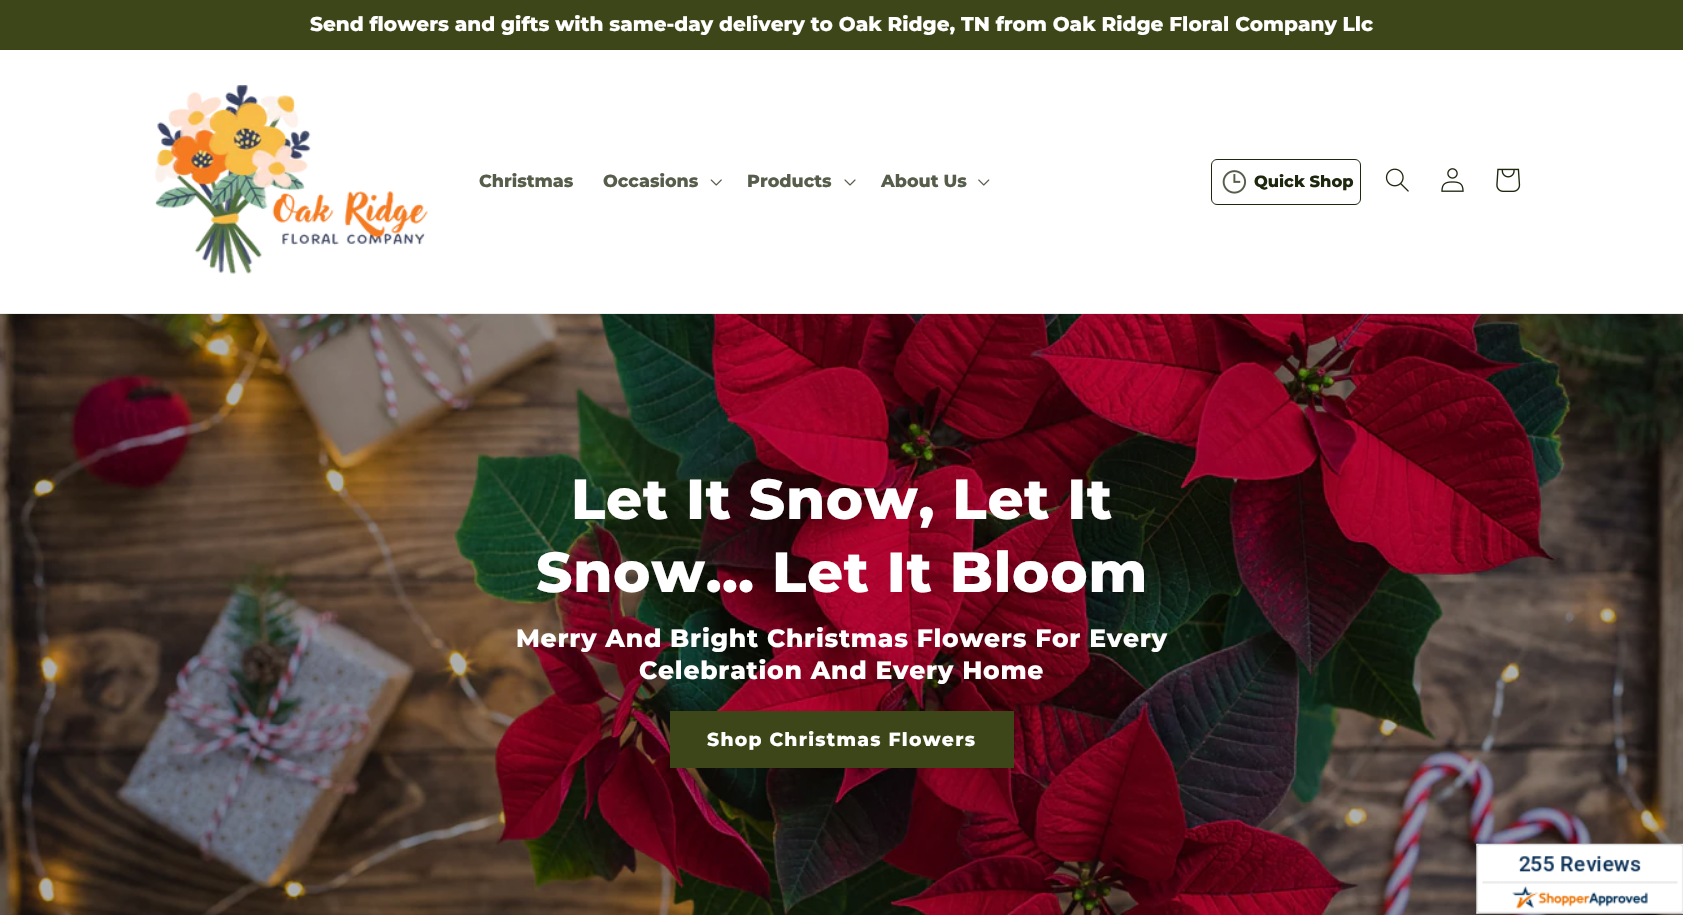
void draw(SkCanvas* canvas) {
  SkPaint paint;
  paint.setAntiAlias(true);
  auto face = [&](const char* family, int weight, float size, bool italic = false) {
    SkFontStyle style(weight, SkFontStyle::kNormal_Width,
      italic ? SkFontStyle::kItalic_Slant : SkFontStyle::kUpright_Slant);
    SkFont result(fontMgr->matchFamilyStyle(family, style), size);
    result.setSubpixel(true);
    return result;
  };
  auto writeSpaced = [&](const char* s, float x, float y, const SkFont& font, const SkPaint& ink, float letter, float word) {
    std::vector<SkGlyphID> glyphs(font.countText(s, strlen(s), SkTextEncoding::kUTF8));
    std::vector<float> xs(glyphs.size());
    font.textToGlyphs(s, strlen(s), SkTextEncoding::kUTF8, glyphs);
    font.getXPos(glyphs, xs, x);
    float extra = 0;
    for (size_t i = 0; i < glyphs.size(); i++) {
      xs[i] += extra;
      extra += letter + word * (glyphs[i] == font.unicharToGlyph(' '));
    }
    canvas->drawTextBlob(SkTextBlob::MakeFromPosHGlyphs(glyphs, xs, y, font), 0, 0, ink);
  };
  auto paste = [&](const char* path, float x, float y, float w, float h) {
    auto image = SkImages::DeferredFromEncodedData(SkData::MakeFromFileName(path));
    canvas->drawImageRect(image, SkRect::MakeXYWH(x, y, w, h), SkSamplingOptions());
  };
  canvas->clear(0xffffffff);
  {
    const struct { float x, y, w, h; SkColor color; } items[] = {
      {0, 0, 1683, 49, 0xff3c4618},
      {0, 49, 1683, 1, 0xff3a4417},
      {0, 313, 1683, 1, 0xffedeeec},
    };
    for (auto [x, y, w, h, color] : items) {
      paint.setColor(color);
      canvas->drawRect(SkRect::MakeXYWH(x, y, w, h), paint);
    }
  }
  paste("img/1.png", 155, 85, 273, 189);
  paste("img/2.png", 710, 179, 12, 7);
  paste("img/3.png", 844, 179, 12, 7);
  paste("img/4.png", 978, 179, 12, 7);
  paint.setStroke(true);
  paint.setStrokeWidth(1);
  paint.setColor(0xff1e280f);
  canvas->drawRoundRect(SkRect::MakeXYWH(1211.5f, 159.5f, 149, 45), 5.5f, 5.5f, paint);
  paste("img/5.png", 1222, 170, 25, 24);
  paste("img/6.png", 1385, 168, 24, 24);
  paste("img/7.png", 1441, 168, 23, 24);
  paste("img/8.png", 1496, 168, 25, 24);
  paste("img/9.png", 0, 314, 1683, 601);
  paint.setStroke(false);
  paint.setColor(0xff3c4618);
  canvas->drawRect(SkRect::MakeXYWH(670, 711, 344, 57), paint);
  paste("img/10.png", 1476, 843, 207, 71);
  auto f0 = face("Montserrat", 800, 20);
  paint.setColor(0xffffffff);
  canvas->drawString("Send flowers and gifts with same-day delivery to Oak Ridge, TN from Oak Ridge Floral Company Llc", 310, 31, f0, paint);
  auto f1 = face("Montserrat", 800, 17.5f);
  paint.setColor(0xff565e4b);
  {
    const struct { const char* s; float x, y; } items[] = {
      {"Christmas", 479, 187},
      {"Occasions", 603, 187},
      {"Products", 747, 187},
      {"About Us", 881, 187},
    };
    for (auto [s, x, y] : items) {
      canvas->drawString(s, x, y, f1, paint);
    }
  }
  auto f2 = face("Montserrat", 800, 16.25f);
  paint.setColor(0xff1e280f);
  canvas->drawString("Quick Shop", 1254, 187, f2, paint);
  auto f3 = face("Montserrat", 800, 56.25f);
  paint.setColor(0xffffffff);
  writeSpaced("Let It Snow, Let It", 571, 519, f3, paint, 0.75f, 0);
  writeSpaced("Snow… Let It Bloom", 536, 592, f3, paint, 0.75f, 0);
  auto f4 = face("Montserrat", 800, 25);
  writeSpaced("Merry And Bright Christmas Flowers For Every", 516, 647, f4, paint, 0.75f, 0);
  writeSpaced("Celebration And Every Home", 639, 679, f4, paint, 0.75f, 0);
  auto f5 = face("Montserrat", 800, 18.75f);
  writeSpaced("Shop Christmas Flowers", 707, 746, f5, paint, 1.25f, 0);
}
